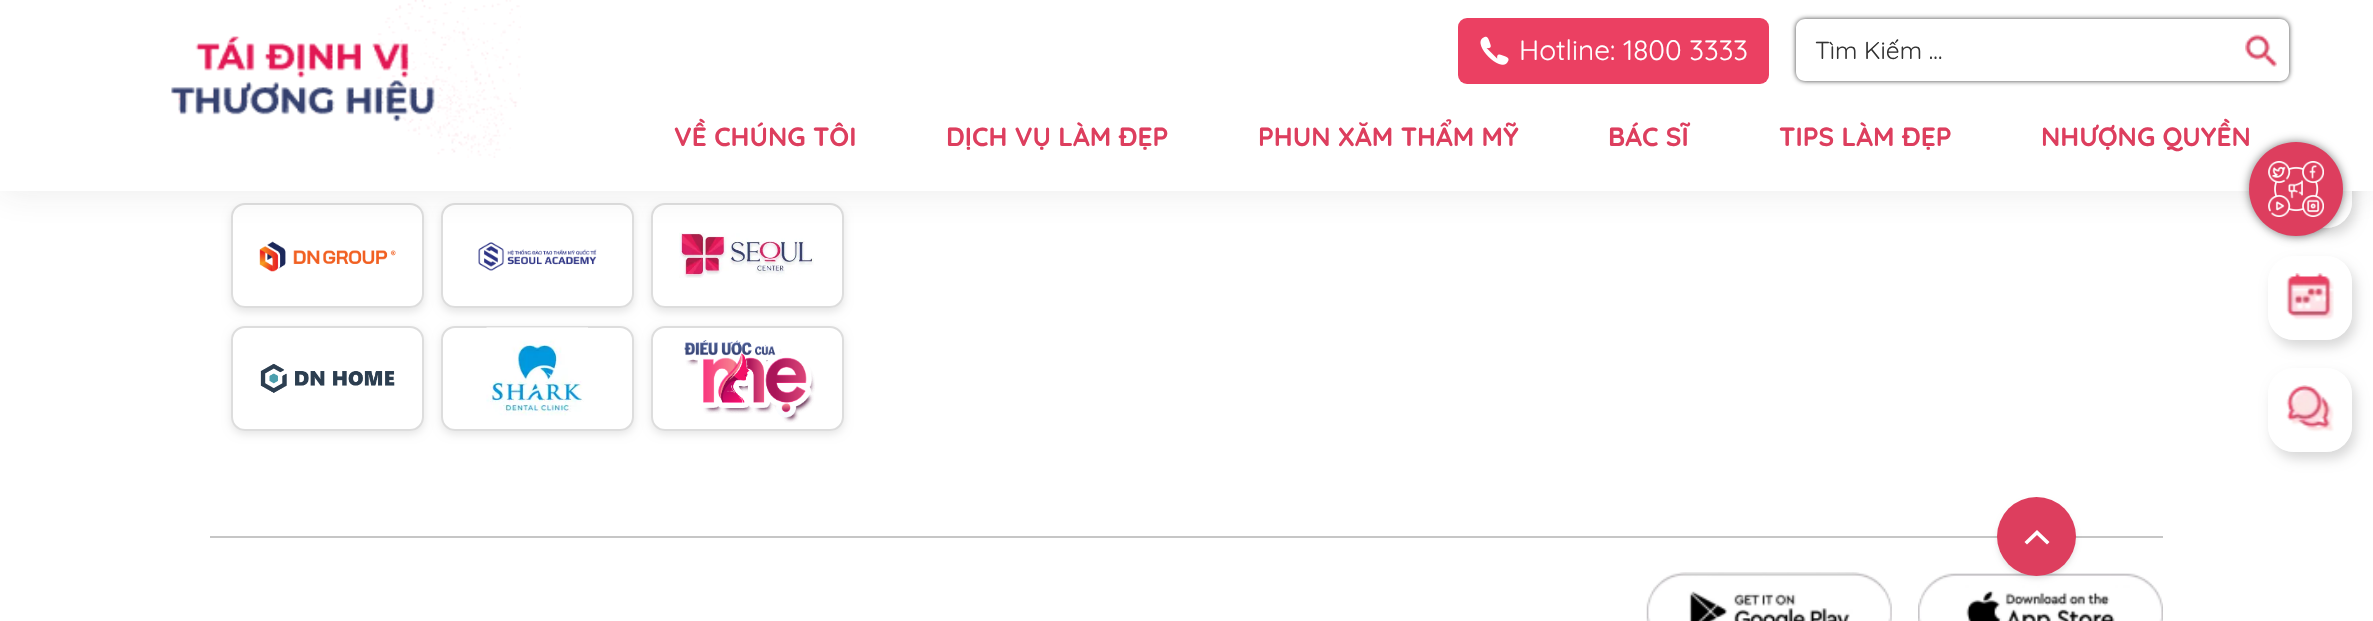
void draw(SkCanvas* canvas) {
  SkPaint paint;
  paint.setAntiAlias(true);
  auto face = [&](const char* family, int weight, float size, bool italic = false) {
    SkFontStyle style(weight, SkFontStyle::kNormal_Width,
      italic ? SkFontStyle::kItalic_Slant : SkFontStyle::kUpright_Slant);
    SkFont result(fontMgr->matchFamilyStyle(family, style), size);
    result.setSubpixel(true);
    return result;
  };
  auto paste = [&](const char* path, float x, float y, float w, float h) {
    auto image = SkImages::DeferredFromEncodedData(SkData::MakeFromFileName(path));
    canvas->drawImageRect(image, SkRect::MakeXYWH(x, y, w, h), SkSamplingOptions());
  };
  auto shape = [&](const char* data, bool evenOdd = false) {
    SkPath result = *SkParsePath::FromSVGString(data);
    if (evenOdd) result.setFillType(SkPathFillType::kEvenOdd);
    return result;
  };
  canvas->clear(0xffffffff);
  canvas->save();
  canvas->clipPath(shape("M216 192H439V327H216ZM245 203H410C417.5 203 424 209.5 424 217V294C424 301.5 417.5 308 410 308H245C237.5 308 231 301.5 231 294V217C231 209.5 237.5 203 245 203Z", true), true);
  paint.setColor(0x1a000000);
  paint.setMaskFilter(SkMaskFilter::MakeBlur(kNormal_SkBlurStyle, 4.5f));
  canvas->drawRoundRect(SkRect::MakeXYWH(231, 207, 193, 105), 14, 14, paint);
  paint.setMaskFilter(nullptr);
  canvas->restore();
  paint.setStroke(true);
  paint.setStrokeWidth(2);
  paint.setColor(0xffdddddd);
  canvas->drawRoundRect(SkRect::MakeXYWH(232, 204, 191, 103), 13, 13, paint);
  paste("img/5.png", 259, 241, 137, 31);
  canvas->save();
  canvas->clipPath(shape("M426 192H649V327H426ZM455 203H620C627.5 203 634 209.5 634 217V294C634 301.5 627.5 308 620 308H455C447.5 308 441 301.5 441 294V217C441 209.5 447.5 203 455 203Z", true), true);
  paint.setStroke(false);
  paint.setColor(0x1a000000);
  paint.setMaskFilter(SkMaskFilter::MakeBlur(kNormal_SkBlurStyle, 4.5f));
  canvas->drawRoundRect(SkRect::MakeXYWH(441, 207, 193, 105), 14, 14, paint);
  paint.setMaskFilter(nullptr);
  canvas->restore();
  paint.setStroke(true);
  paint.setColor(0xffdddddd);
  canvas->drawRoundRect(SkRect::MakeXYWH(442, 204, 191, 103), 13, 13, paint);
  paste("img/6.png", 478, 242, 119, 29);
  canvas->save();
  canvas->clipPath(shape("M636 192H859V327H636ZM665 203H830C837.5 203 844 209.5 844 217V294C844 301.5 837.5 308 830 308H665C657.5 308 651 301.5 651 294V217C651 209.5 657.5 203 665 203Z", true), true);
  paint.setStroke(false);
  paint.setColor(0x1a000000);
  paint.setMaskFilter(SkMaskFilter::MakeBlur(kNormal_SkBlurStyle, 4.5f));
  canvas->drawRoundRect(SkRect::MakeXYWH(651, 207, 193, 105), 14, 14, paint);
  paint.setMaskFilter(nullptr);
  canvas->restore();
  paint.setStroke(true);
  paint.setColor(0xffdddddd);
  canvas->drawRoundRect(SkRect::MakeXYWH(652, 204, 191, 103), 13, 13, paint);
  paste("img/7.png", 679, 232, 135, 46);
  canvas->save();
  canvas->clipPath(shape("M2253 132H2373V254H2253ZM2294 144H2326C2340.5 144 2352 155.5 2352 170V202C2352 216.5 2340.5 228 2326 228H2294C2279.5 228 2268 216.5 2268 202V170C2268 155.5 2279.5 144 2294 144Z", true), true);
  paint.setStroke(false);
  paint.setColor(0x26000000);
  paint.setMaskFilter(SkMaskFilter::MakeBlur(kNormal_SkBlurStyle, 6));
  canvas->drawRoundRect(SkRect::MakeXYWH(2272, 151, 84, 84), 26, 26, paint);
  paint.setMaskFilter(nullptr);
  canvas->restore();
  paint.setColor(0xbfffffff);
  canvas->drawRoundRect(SkRect::MakeXYWH(2268, 144, 84, 84), 26, 26, paint);
  paint.setColor(0x1a333333);
  paint.setMaskFilter(SkMaskFilter::MakeBlur(kNormal_SkBlurStyle, 17.5f));
  canvas->drawRect(SkRect::MakeXYWH(0, 0, 2373, 191), paint);
  paint.setMaskFilter(nullptr);
  paint.setColor(0xffffffff);
  canvas->drawRect(SkRect::MakeXYWH(0, 0, 2373, 191), paint);
  paste("img/1.png", 171, 0, 350, 158);
  paint.setColor(0xffeb4062);
  canvas->drawRoundRect(SkRect::MakeXYWH(1458, 18, 311, 66), 9, 9, paint);
  paste("img/2.png", 1480, 36, 29, 29);
  canvas->save();
  canvas->clipPath(shape("M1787 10H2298V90H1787ZM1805 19H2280C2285 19 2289 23 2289 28V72C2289 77 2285 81 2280 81H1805C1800 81 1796 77 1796 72V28C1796 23 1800 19 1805 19Z", true), true);
  paint.setColor(0xc2000000);
  paint.setMaskFilter(SkMaskFilter::MakeBlur(kNormal_SkBlurStyle, 2.5f));
  canvas->drawRoundRect(SkRect::MakeXYWH(1796, 19, 493, 62), 9, 9, paint);
  paint.setMaskFilter(nullptr);
  canvas->restore();
  paste("img/3.png", 2245, 34, 32, 33);
  paint.setColor(0x80000000);
  paint.setMaskFilter(SkMaskFilter::MakeBlur(kNormal_SkBlurStyle, 5));
  canvas->drawRoundRect(SkRect::MakeXYWH(2249, 142, 94, 94), 47, 47, paint);
  paint.setMaskFilter(nullptr);
  paint.setColor(0xffdd3e5e);
  canvas->drawCircle(2296, 189, 47, paint);
  paste("img/4.png", 2268, 161, 56, 56);
  canvas->save();
  canvas->clipPath(shape("M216 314H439V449H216ZM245 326H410C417.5 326 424 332.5 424 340V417C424 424.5 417.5 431 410 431H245C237.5 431 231 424.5 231 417V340C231 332.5 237.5 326 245 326Z", true), true);
  paint.setColor(0x1a000000);
  paint.setMaskFilter(SkMaskFilter::MakeBlur(kNormal_SkBlurStyle, 4.5f));
  canvas->drawRoundRect(SkRect::MakeXYWH(231, 329, 193, 105), 14, 14, paint);
  paint.setMaskFilter(nullptr);
  canvas->restore();
  paint.setStroke(true);
  paint.setColor(0xffdddddd);
  canvas->drawRoundRect(SkRect::MakeXYWH(232, 327, 191, 103), 13, 13, paint);
  paste("img/8.png", 260, 363, 135, 30);
  canvas->save();
  canvas->clipPath(shape("M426 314H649V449H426ZM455 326H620C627.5 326 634 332.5 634 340V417C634 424.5 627.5 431 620 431H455C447.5 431 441 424.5 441 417V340C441 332.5 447.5 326 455 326Z", true), true);
  paint.setStroke(false);
  paint.setColor(0x1a000000);
  paint.setMaskFilter(SkMaskFilter::MakeBlur(kNormal_SkBlurStyle, 4.5f));
  canvas->drawRoundRect(SkRect::MakeXYWH(441, 329, 193, 105), 14, 14, paint);
  paint.setMaskFilter(nullptr);
  canvas->restore();
  paint.setStroke(true);
  paint.setColor(0xffdddddd);
  canvas->drawRoundRect(SkRect::MakeXYWH(442, 327, 191, 103), 13, 13, paint);
  paste("img/9.png", 486, 327, 102, 89);
  canvas->save();
  canvas->clipPath(shape("M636 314H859V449H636ZM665 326H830C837.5 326 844 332.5 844 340V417C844 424.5 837.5 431 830 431H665C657.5 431 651 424.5 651 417V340C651 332.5 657.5 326 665 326Z", true), true);
  paint.setStroke(false);
  paint.setColor(0x1a000000);
  paint.setMaskFilter(SkMaskFilter::MakeBlur(kNormal_SkBlurStyle, 4.5f));
  canvas->drawRoundRect(SkRect::MakeXYWH(651, 329, 193, 105), 14, 14, paint);
  paint.setMaskFilter(nullptr);
  canvas->restore();
  paint.setStroke(true);
  paint.setColor(0xffdddddd);
  canvas->drawRoundRect(SkRect::MakeXYWH(652, 327, 191, 103), 13, 13, paint);
  paste("img/10.png", 684, 340, 131, 83);
  paint.setStroke(false);
  paint.setColor(0xffc6c6c6);
  canvas->drawRect(SkRect::MakeXYWH(210, 536, 1953, 2), paint);
  paste("img/11.png", 1646, 572, 246, 49);
  paste("img/12.png", 1918, 573, 245, 48);
  canvas->save();
  canvas->clipPath(shape("M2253 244H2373V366H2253ZM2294 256H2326C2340.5 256 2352 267.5 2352 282V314C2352 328.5 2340.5 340 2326 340H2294C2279.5 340 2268 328.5 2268 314V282C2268 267.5 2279.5 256 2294 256Z", true), true);
  paint.setColor(0x26000000);
  paint.setMaskFilter(SkMaskFilter::MakeBlur(kNormal_SkBlurStyle, 6));
  canvas->drawRoundRect(SkRect::MakeXYWH(2272, 263, 84, 84), 26, 26, paint);
  paint.setMaskFilter(nullptr);
  canvas->restore();
  paint.setColor(0xbfffffff);
  canvas->drawRoundRect(SkRect::MakeXYWH(2268, 256, 84, 84), 26, 26, paint);
  paste("img/13.png", 2286, 273, 48, 47);
  canvas->save();
  canvas->clipPath(shape("M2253 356H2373V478H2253ZM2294 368H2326C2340.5 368 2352 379.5 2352 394V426C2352 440.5 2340.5 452 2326 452H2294C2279.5 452 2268 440.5 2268 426V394C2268 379.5 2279.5 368 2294 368Z", true), true);
  paint.setColor(0x26000000);
  paint.setMaskFilter(SkMaskFilter::MakeBlur(kNormal_SkBlurStyle, 6));
  canvas->drawRoundRect(SkRect::MakeXYWH(2272, 375, 84, 84), 26, 26, paint);
  paint.setMaskFilter(nullptr);
  canvas->restore();
  paint.setColor(0xbfffffff);
  canvas->drawRoundRect(SkRect::MakeXYWH(2268, 368, 84, 84), 26, 26, paint);
  paste("img/14.png", 2286, 385, 48, 47);
  paint.setColor(0x1a000000);
  paint.setMaskFilter(SkMaskFilter::MakeBlur(kNormal_SkBlurStyle, 2.5f));
  canvas->drawRoundRect(SkRect::MakeXYWH(1997, 501, 79, 78), 39, 39, paint);
  paint.setMaskFilter(nullptr);
  paint.setColor(0xffdd3e5e);
  canvas->drawCircle(2036.5f, 536.5f, 39.5f, paint);
  paint.setColor(0xffffffff);
  canvas->drawPath(shape("M2047 544.5L2049.5 542L2037 530L2024.5 542L2027 544.5L2037 535Z"), paint);
  auto f0 = face("Quicksand", 400, 28);
  canvas->drawString("Hotline: 1800 3333", 1519, 60, f0, paint);
  auto f1 = face("Quicksand", 400, 24.5f);
  paint.setColor(0xff333333);
  canvas->drawString("Tìm Kiếm …", 1815, 59, f1, paint);
  auto f2 = face("Quicksand", 700, 26.25f);
  paint.setColor(0xffdd3e5e);
  {
    const struct { const char* s; float x, y; } items[] = {
      {"VỀ CHÚNG TÔI", 674, 146},
      {"DỊCH VỤ LÀM ĐẸP", 946, 146},
      {"PHUN XĂM THẨM MỸ", 1258, 146},
      {"BÁC SĨ", 1608, 146},
      {"TIPS LÀM ĐẸP", 1779, 146},
      {"NHƯỢNG QUYỀN", 2041, 146},
    };
    for (auto [s, x, y] : items) {
      canvas->drawString(s, x, y, f2, paint);
    }
  }
}
